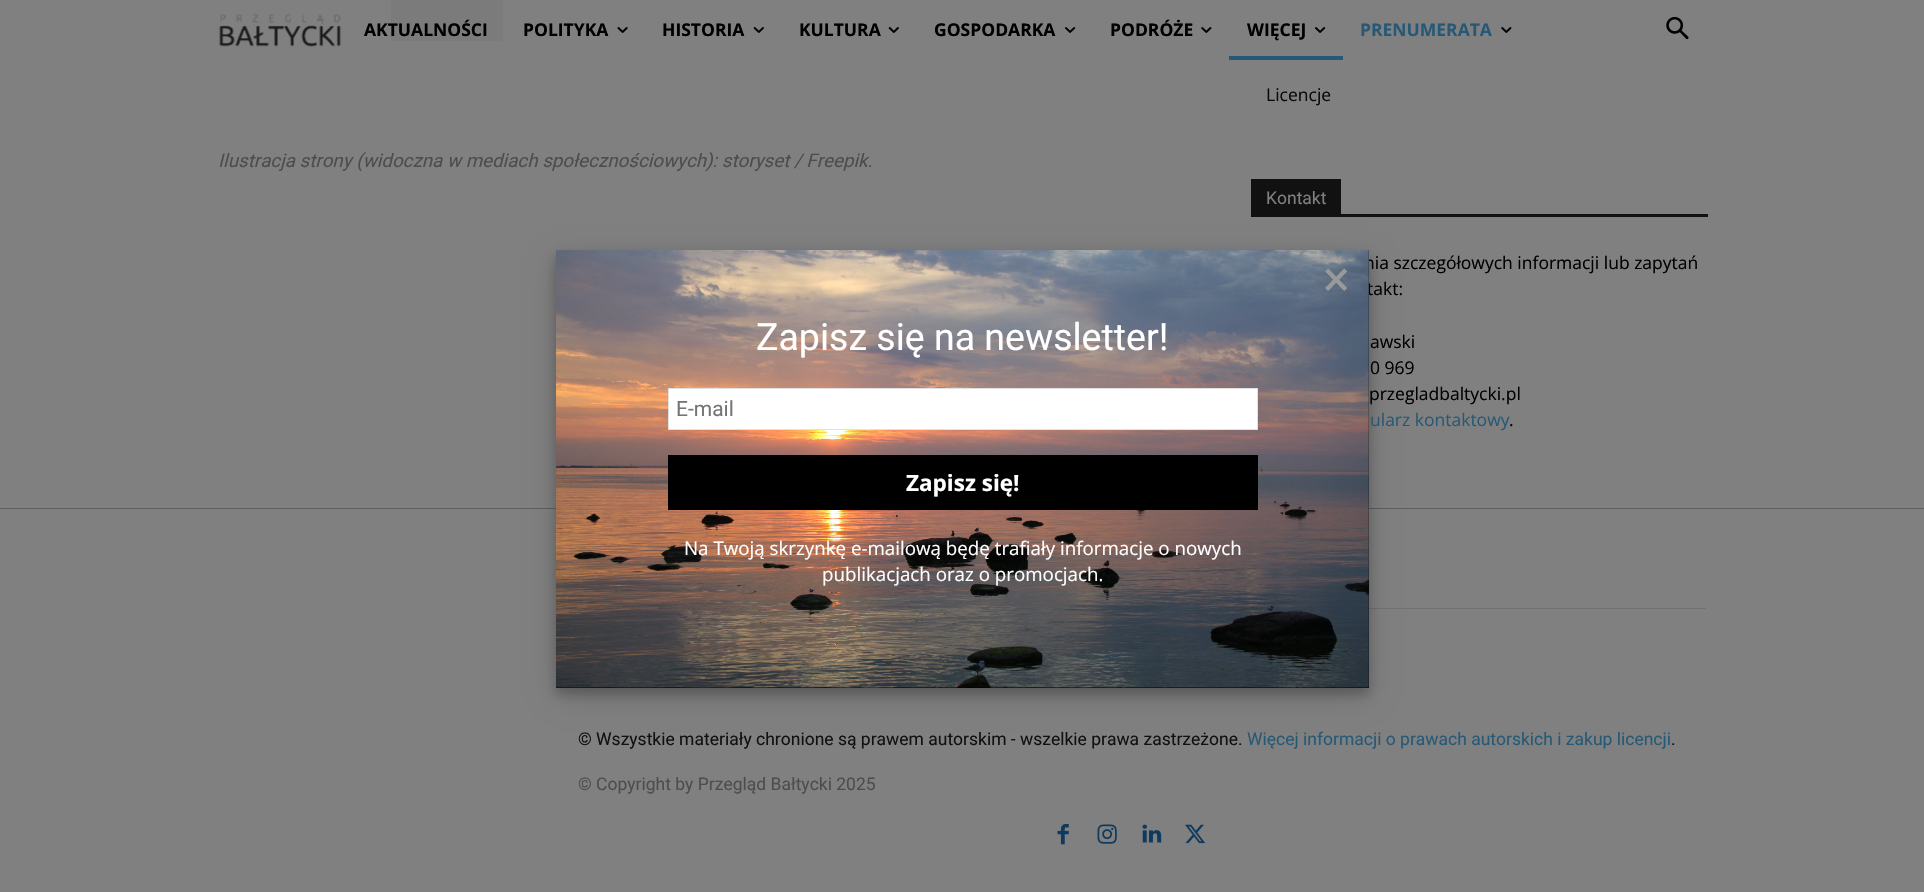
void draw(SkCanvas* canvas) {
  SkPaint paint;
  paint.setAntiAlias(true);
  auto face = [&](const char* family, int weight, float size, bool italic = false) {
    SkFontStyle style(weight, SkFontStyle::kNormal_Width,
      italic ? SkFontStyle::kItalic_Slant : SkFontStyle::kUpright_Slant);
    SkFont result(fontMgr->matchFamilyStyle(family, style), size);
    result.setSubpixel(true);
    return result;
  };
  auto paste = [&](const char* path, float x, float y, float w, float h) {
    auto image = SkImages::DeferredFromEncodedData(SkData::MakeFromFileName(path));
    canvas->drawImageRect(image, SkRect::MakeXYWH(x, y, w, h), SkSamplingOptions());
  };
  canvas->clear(0xff808080);
  paint.setColor(0xff222222);
  canvas->drawRect(SkRect::MakeXYWH(391, 0, 112, 41), paint);
  paint.setColor(0xf2808080);
  canvas->drawRect(SkRect::MakeXYWH(391, 0, 112, 41), paint);
  paste("img/1.png", 219, 14, 122, 33);
  paste("img/2.png", 617, 27, 11, 6);
  paste("img/3.png", 753, 27, 11, 6);
  paste("img/3.png", 888, 27, 11, 6);
  paste("img/4.png", 1065, 27, 11, 6);
  paste("img/5.png", 1201, 27, 11, 6);
  paste("img/4.png", 1315, 27, 11, 6);
  paint.setColor(0xff275976);
  canvas->drawRect(SkRect::MakeXYWH(1229, 56, 114, 4), paint);
  paste("img/5.png", 1501, 27, 11, 6);
  paste("img/6.png", 1666, 16, 23, 24);
  {
    const struct { float x, y, w, h; SkColor color; } items[] = {
      {1251, 214, 457, 3, 0xff111111},
      {1251, 179, 90, 35, 0xff111111},
      {0, 508, 1924, 1, 0xff5e5e5e},
      {1369, 608, 337, 1, 0xff717171},
    };
    for (auto [x, y, w, h, color] : items) {
      paint.setColor(color);
      canvas->drawRect(SkRect::MakeXYWH(x, y, w, h), paint);
    }
  }
  paste("img/7.png", 1057, 824, 12, 21);
  paste("img/8.png", 1097, 824, 20, 20);
  paste("img/9.png", 1142, 824, 20, 19);
  paste("img/10.png", 1185, 824, 20, 20);
  paint.setColor(0x2b000000);
  paint.setMaskFilter(SkMaskFilter::MakeBlur(kNormal_SkBlurStyle, 12.5f));
  canvas->drawRect(SkRect::MakeXYWH(556, 259, 813, 437), paint);
  paint.setMaskFilter(nullptr);
  paint.setColor(0x33000000);
  paint.setMaskFilter(SkMaskFilter::MakeBlur(kNormal_SkBlurStyle, 5));
  canvas->drawRect(SkRect::MakeXYWH(556, 256, 813, 438), paint);
  paint.setMaskFilter(nullptr);
  paint.setColor(0xff000000);
  canvas->drawRect(SkRect::MakeXYWH(556, 250, 813, 438), paint);
  auto f0 = face("Open Sans", 700, 17.5f);
  {
    const struct { const char* s; float x, y; } items[] = {
      {"AKTUALNOŚCI", 364, 36},
      {"POLITYKA", 523, 36},
      {"HISTORIA", 662, 36},
      {"KULTURA", 799, 36},
      {"GOSPODARKA", 934, 36},
      {"PODRÓŻE", 1110, 36},
      {"WIĘCEJ", 1247, 36},
    };
    for (auto [s, x, y] : items) {
      canvas->drawString(s, x, y, f0, paint);
    }
  }
  paint.setColor(0xff275976);
  canvas->drawString("PRENUMERATA", 1360, 36, f0, paint);
  auto f1 = face("Roboto", 400, 18.75f, true);
  paint.setColor(0xff4d4d4d);
  canvas->drawString("Ilustracja strony (widoczna w mediach społecznościowych): storyset / Freepik.", 218, 167, f1, paint);
  auto f2 = face("Open Sans", 400, 17.5f);
  paint.setColor(0xff090909);
  canvas->drawString("Licencje", 1266, 101, f2, paint);
  auto f3 = face("Roboto", 400, 17.5f);
  paint.setColor(0xff808080);
  canvas->drawString("Kontakt", 1266, 204, f3, paint);
  paint.setColor(0xff000000);
  {
    const struct { const char* s; float x, y; } items[] = {
      {"nia szczegółowych informacji lub zapytań", 1364, 269},
      {"takt:", 1367, 295},
      {"awski", 1370, 348},
      {"0 969", 1370, 374},
      {"przegladbaltycki.pl", 1369, 400},
    };
    for (auto [s, x, y] : items) {
      canvas->drawString(s, x, y, f2, paint);
    }
  }
  paint.setColor(0xff275976);
  canvas->drawString("ularz kontaktowy", 1370, 426, f2, paint);
  paint.setColor(0xff000000);
  canvas->drawString(".", 1509, 426, f2, paint);
  paint.setColor(0xff111111);
  canvas->drawString("© Wszystkie materiały chronione są prawem autorskim - wszelkie prawa zastrzeżone.", 578, 745, f3, paint);
  paint.setColor(0xff275976);
  canvas->drawString("Więcej informacji o prawach autorskich i zakup licencji", 1247, 745, f3, paint);
  paint.setColor(0xff111111);
  canvas->drawString(".", 1671, 745, f3, paint);
  paint.setColor(0xff4d4d4d);
  canvas->drawString("© Copyright by Przegląd Bałtycki 2025", 578, 790, f3, paint);
  paste("img/11.png", 556, 250, 813, 438);
  auto f4 = face("Roboto", 400, 50);
  paint.setColor(0xff999999);
  canvas->drawString("×", 1323, 296, f4, paint);
  auto f5 = face("Roboto", 400, 37.5f);
  paint.setColor(0xffffffff);
  canvas->drawString("Zapisz się na newsletter!", 756, 350, f5, paint);
  canvas->drawRect(SkRect::MakeXYWH(668.5f, 388.5f, 589, 41), paint);
  paint.setStroke(true);
  paint.setStrokeWidth(1);
  paint.setColor(0xffe1e1e1);
  canvas->drawRect(SkRect::MakeXYWH(668.5f, 388.5f, 589, 41), paint);
  auto f6 = face("Roboto", 400, 21);
  paint.setStroke(false);
  paint.setColor(0xff757575);
  canvas->drawString("E-mail", 676, 416, f6, paint);
  paint.setColor(0xff000000);
  canvas->drawRect(SkRect::MakeXYWH(668, 455, 590, 55), paint);
  auto f7 = face("Open Sans", 700, 22.5f);
  paint.setColor(0xffffffff);
  canvas->drawString("Zapisz się!", 906, 491, f7, paint);
  auto f8 = face("Open Sans", 400, 18.75f);
  canvas->drawString("Na Twoją skrzynkę e-mailową będę trafiały informacje o nowych", 684, 555, f8, paint);
  canvas->drawString("publikacjach oraz o promocjach.", 822, 581, f8, paint);
}
